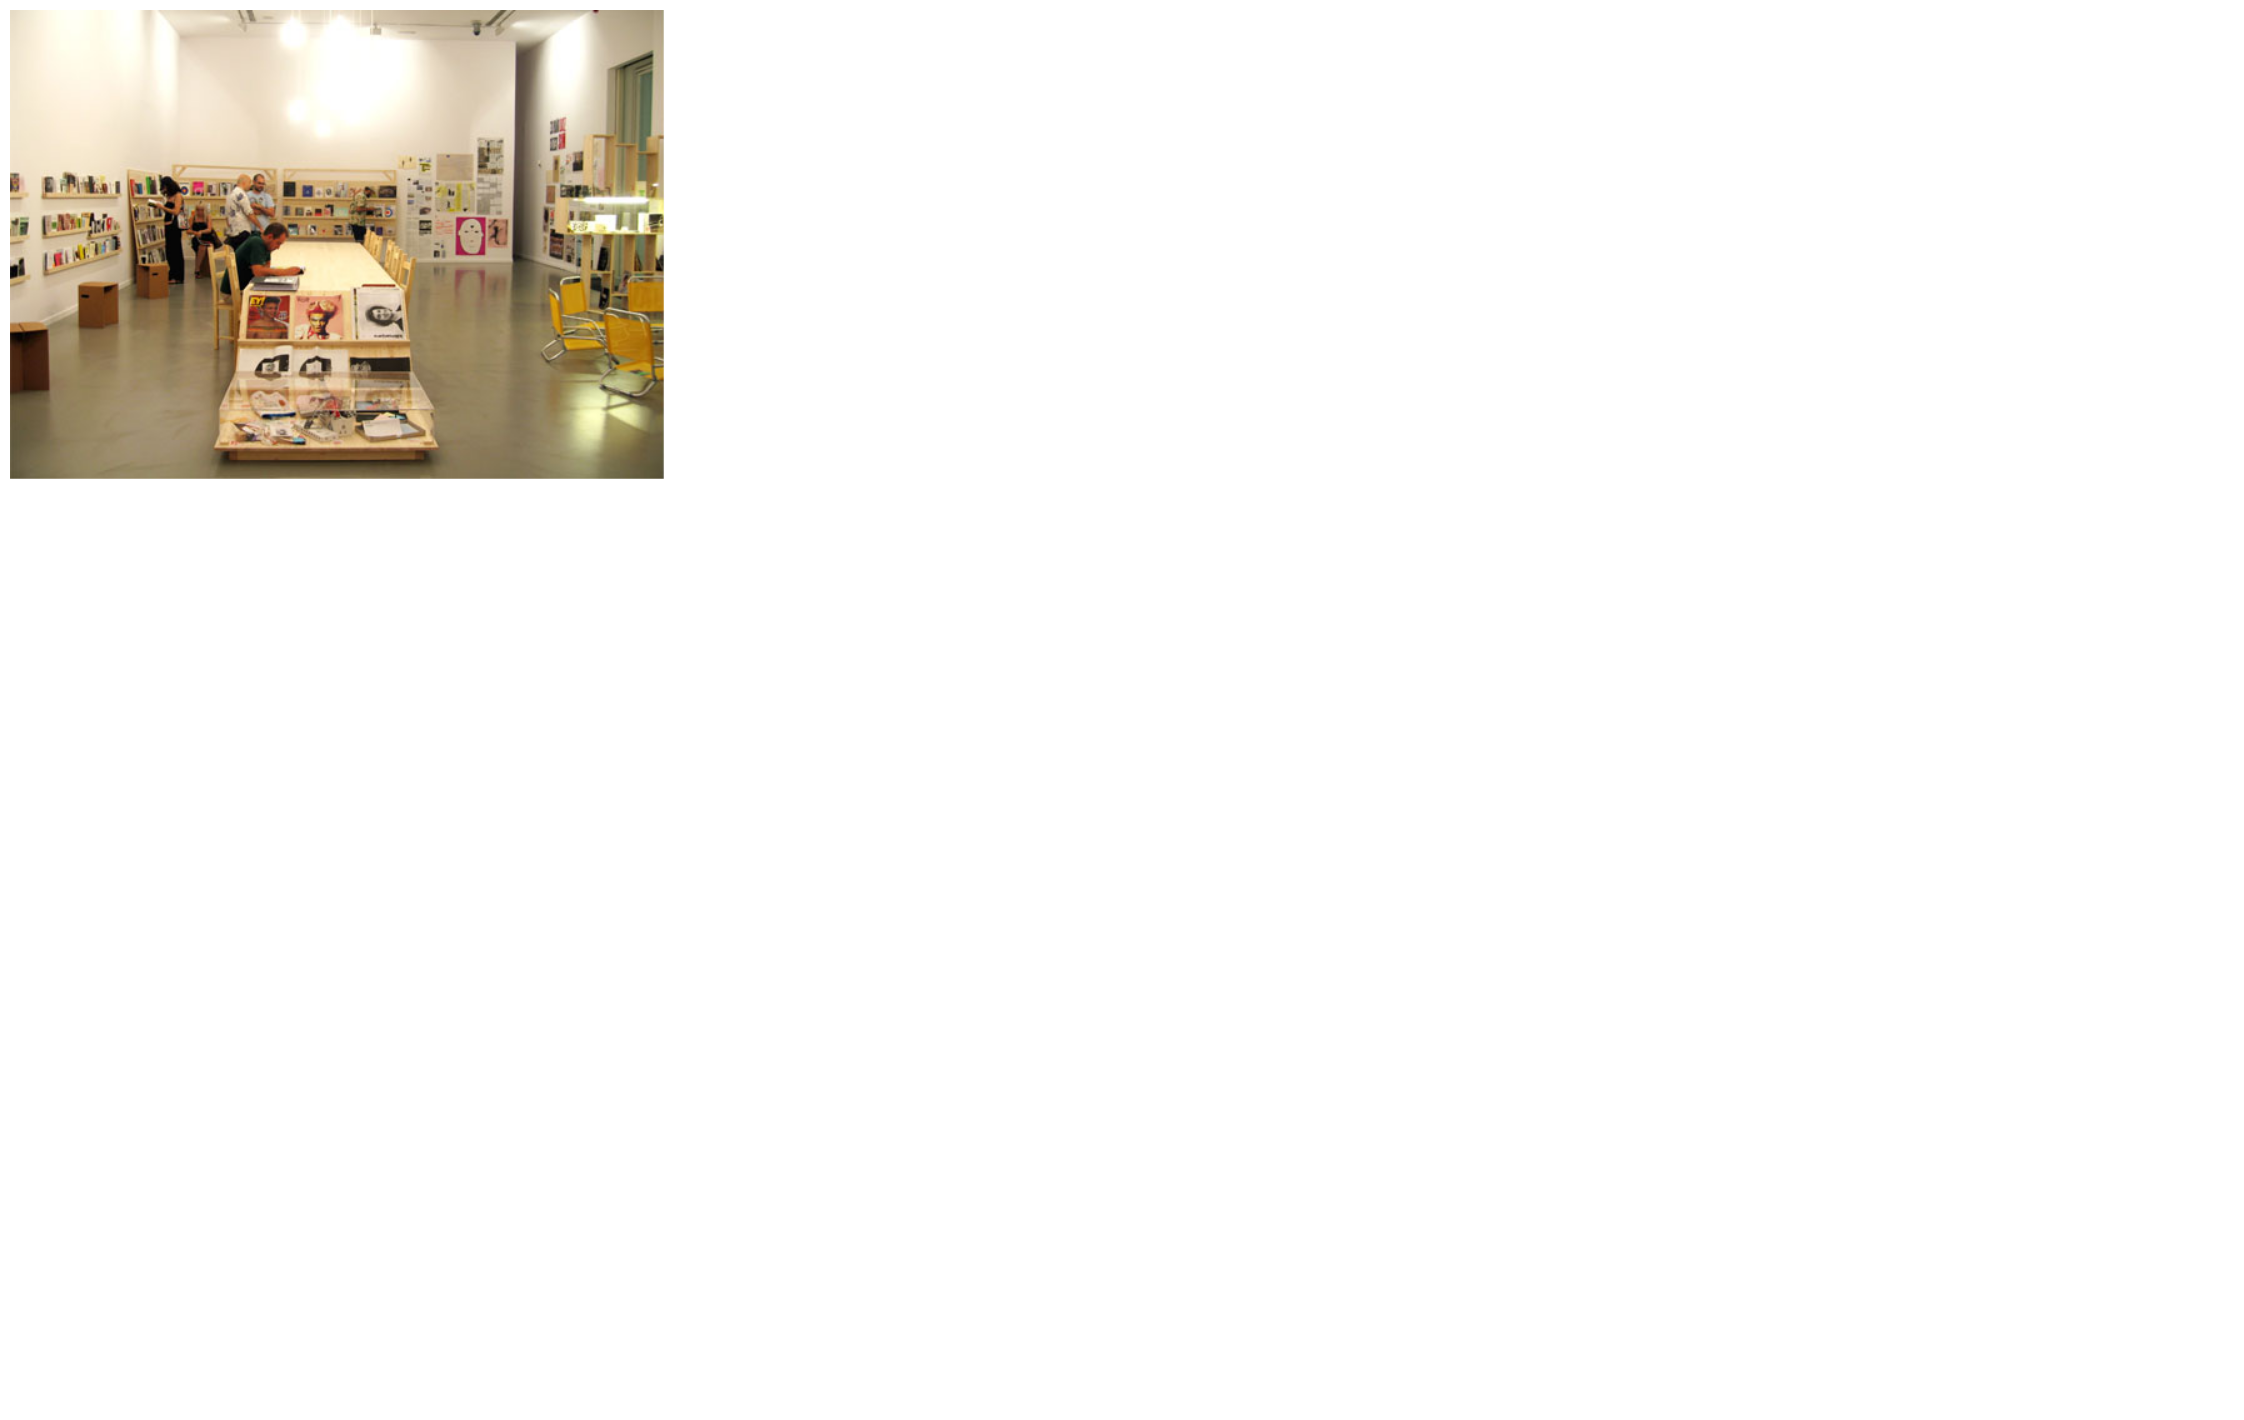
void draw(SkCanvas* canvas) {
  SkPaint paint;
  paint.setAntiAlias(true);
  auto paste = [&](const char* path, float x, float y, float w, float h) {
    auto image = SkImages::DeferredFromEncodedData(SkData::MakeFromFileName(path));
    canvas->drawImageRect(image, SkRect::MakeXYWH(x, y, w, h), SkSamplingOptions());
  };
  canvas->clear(0xffffffff);
  paste("img/1.png", 10, 10, 655, 469);
}
